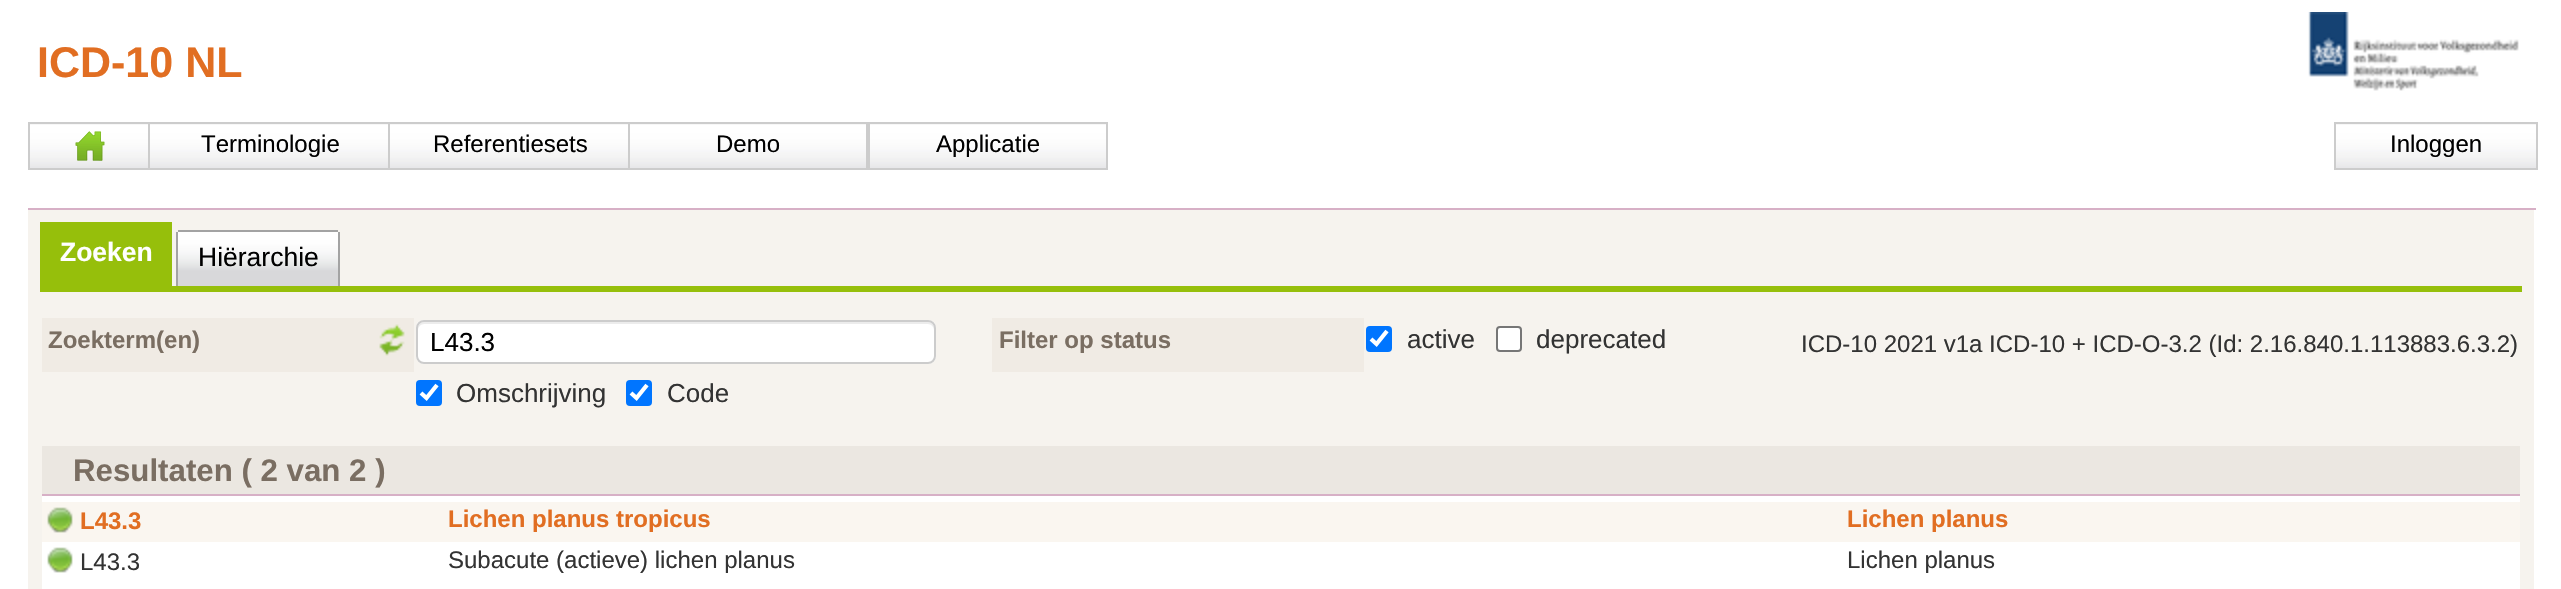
void draw(SkCanvas* canvas) {
  SkPaint paint;
  paint.setAntiAlias(true);
  auto face = [&](const char* family, int weight, float size, bool italic = false) {
    SkFontStyle style(weight, SkFontStyle::kNormal_Width,
      italic ? SkFontStyle::kItalic_Slant : SkFontStyle::kUpright_Slant);
    SkFont result(fontMgr->matchFamilyStyle(family, style), size);
    result.setSubpixel(true);
    return result;
  };
  auto paste = [&](const char* path, float x, float y, float w, float h) {
    auto image = SkImages::DeferredFromEncodedData(SkData::MakeFromFileName(path));
    canvas->drawImageRect(image, SkRect::MakeXYWH(x, y, w, h), SkSamplingOptions());
  };
  auto shape = [&](const char* data, bool evenOdd = false) {
    SkPath result = *SkParsePath::FromSVGString(data);
    if (evenOdd) result.setFillType(SkPathFillType::kEvenOdd);
    return result;
  };
  canvas->clear(0xffffffff);
  paste("img/1.png", 2308, 12, 211, 79);
  paste("img/2.png", 30, 124, 118, 44);
  paint.setStroke(true);
  paint.setStrokeWidth(2);
  paint.setColor(0xffcccccc);
  canvas->drawRect(SkRect::MakeXYWH(29, 123, 122, 46), paint);
  paste("img/3.png", 75, 131, 30, 30);
  paste("img/4.png", 150, 124, 238, 44);
  canvas->drawRect(SkRect::MakeXYWH(149, 123, 242, 46), paint);
  paste("img/4.png", 390, 124, 238, 44);
  canvas->drawRect(SkRect::MakeXYWH(389, 123, 242, 46), paint);
  paste("img/5.png", 630, 124, 236, 44);
  canvas->drawRect(SkRect::MakeXYWH(629, 123, 238, 46), paint);
  paste("img/5.png", 870, 124, 236, 44);
  canvas->drawRect(SkRect::MakeXYWH(869, 123, 238, 46), paint);
  paste("img/6.png", 2336, 124, 200, 44);
  canvas->drawRect(SkRect::MakeXYWH(2335, 123, 202, 46), paint);
  paint.setStroke(false);
  {
    const struct { float x, y, w, h; SkColor color; } items[] = {
      {28, 210, 2506, 379, 0xfff6f3ee},
      {28, 208, 2508, 2, 0xffd7b0c6},
      {40, 286, 2482, 6, 0xff96bf0b},
      {40, 222, 132, 64, 0xff96bf0b},
    };
    for (auto [x, y, w, h, color] : items) {
      paint.setColor(color);
      canvas->drawRect(SkRect::MakeXYWH(x, y, w, h), paint);
    }
  }
  paste("img/7.png", 178, 232, 160, 54);
  {
    const struct { float x, y, w, h; SkColor color; } items[] = {
      {338, 232, 2, 54, 0xffa3a3a3},
      {176, 232, 2, 54, 0xffa3a3a3},
      {178, 230, 160, 2, 0xffa3a3a3},
      {42, 318, 372, 54, 0xfff0ebe4},
    };
    for (auto [x, y, w, h, color] : items) {
      paint.setColor(color);
      canvas->drawRect(SkRect::MakeXYWH(x, y, w, h), paint);
    }
  }
  paste("img/8.png", 379, 324, 26, 32);
  paint.setColor(0xffffffff);
  canvas->drawRoundRect(SkRect::MakeXYWH(416, 320, 520, 44), 8, 8, paint);
  paint.setColor(0xffececec);
  canvas->drawPath(shape("M424 324H928C931 324 934 327 934 330V328C934 325 931 322 928 322H424C421 322 418 325 418 328V330C418 327 421 324 424 324Z"), paint);
  paint.setStroke(true);
  paint.setColor(0xffcccccc);
  canvas->drawRoundRect(SkRect::MakeXYWH(417, 321, 518, 42), 7, 7, paint);
  paint.setStroke(false);
  paint.setColor(0xfff0ebe4);
  canvas->drawRect(SkRect::MakeXYWH(992, 318, 372, 54), paint);
  paint.setColor(0xff0075ff);
  canvas->drawRoundRect(SkRect::MakeXYWH(1366, 326, 26, 26), 4, 4, paint);
  paint.setStroke(true);
  paint.setStrokeWidth(4.2f);
  paint.setColor(0xffffffff);
  canvas->drawPath(shape("M1371 339L1376.5 344L1387 331"), paint);
  paint.setStroke(false);
  canvas->drawRoundRect(SkRect::MakeXYWH(1497, 327, 24, 24), 3, 3, paint);
  paint.setStroke(true);
  paint.setStrokeWidth(2);
  paint.setColor(0xff767676);
  canvas->drawRoundRect(SkRect::MakeXYWH(1497, 327, 24, 24), 3, 3, paint);
  paint.setStroke(false);
  paint.setColor(0xff0075ff);
  canvas->drawRoundRect(SkRect::MakeXYWH(416, 380, 26, 26), 4, 4, paint);
  paint.setStroke(true);
  paint.setStrokeWidth(4.2f);
  paint.setColor(0xffffffff);
  canvas->drawPath(shape("M421 393L426.5 398L437 385"), paint);
  paint.setStroke(false);
  paint.setColor(0xff0075ff);
  canvas->drawRoundRect(SkRect::MakeXYWH(626, 380, 26, 26), 4, 4, paint);
  paint.setStroke(true);
  paint.setColor(0xffffffff);
  canvas->drawPath(shape("M631 393L636.5 398L647 385"), paint);
  paint.setStroke(false);
  {
    const struct { float x, y, w, h; SkColor color; } items[] = {
      {42, 446, 2478, 48, 0xffebe7e1},
      {42, 494, 2478, 2, 0xffd7b0c6},
      {42, 496, 2478, 93, 0xffffffff},
      {42, 502, 2478, 40, 0xfffaf6f0},
    };
    for (auto [x, y, w, h, color] : items) {
      paint.setColor(color);
      canvas->drawRect(SkRect::MakeXYWH(x, y, w, h), paint);
    }
  }
  paste("img/9.png", 47, 507, 26, 26);
  paste("img/10.png", 47, 547, 26, 26);
  auto f0 = face("Liberation Sans", 700, 43);
  paint.setColor(0xffe16e22);
  canvas->drawString("ICD-10 NL", 37, 77, f0, paint);
  auto f1 = face("Liberation Sans", 400, 24);
  paint.setColor(0xff000000);
  {
    const struct { const char* s; float x, y; } items[] = {
      {"Terminologie", 201, 152},
      {"Referentiesets", 433, 152},
      {"Demo", 716, 152},
      {"Applicatie", 936, 152},
      {"Inloggen", 2390, 152},
    };
    for (auto [s, x, y] : items) {
      canvas->drawString(s, x, y, f1, paint);
    }
  }
  auto f2 = face("Liberation Sans", 700, 26.5f);
  paint.setColor(0xffffffff);
  canvas->drawString("Zoeken", 60, 261, f2, paint);
  auto f3 = face("Liberation Sans", 400, 26.5f);
  paint.setColor(0xff000000);
  canvas->drawString("Hiërarchie", 198, 266, f3, paint);
  auto f4 = face("Liberation Sans", 700, 24);
  paint.setColor(0xff7a6e62);
  canvas->drawString("Zoekterm(en)", 48, 348, f4, paint);
  auto f5 = face("Liberation Sans", 400, 26);
  paint.setColor(0xff000000);
  canvas->drawString("L43.3", 430, 351, f5, paint);
  paint.setColor(0xff7a6e62);
  canvas->drawString("Filter op status", 999, 348, f4, paint);
  paint.setColor(0xff333333);
  canvas->drawString("active", 1407, 348, f5, paint);
  canvas->drawString("deprecated", 1536, 348, f5, paint);
  canvas->drawString("ICD-10 2021 v1a ICD-10 + ICD-O-3.2 (Id: 2.16.840.1.113883.6.3.2)", 1801, 352, f1, paint);
  canvas->drawString("Omschrijving", 456, 402, f5, paint);
  canvas->drawString("Code", 667, 402, f5, paint);
  auto f6 = face("Liberation Sans", 700, 31.25f);
  paint.setColor(0xff7a6e62);
  canvas->drawString("Resultaten ( 2 van 2 )", 73, 481, f6, paint);
  paint.setColor(0xffe16e22);
  {
    const struct { const char* s; float x, y; } items[] = {
      {"L43.3", 80, 529},
      {"Lichen planus tropicus", 448, 527},
      {"Lichen planus", 1847, 527},
    };
    for (auto [s, x, y] : items) {
      canvas->drawString(s, x, y, f4, paint);
    }
  }
  paint.setColor(0xff333333);
  {
    const struct { const char* s; float x, y; } items[] = {
      {"L43.3", 80, 570},
      {"Subacute (actieve) lichen planus", 448, 568},
      {"Lichen planus", 1847, 568},
    };
    for (auto [s, x, y] : items) {
      canvas->drawString(s, x, y, f1, paint);
    }
  }
}
